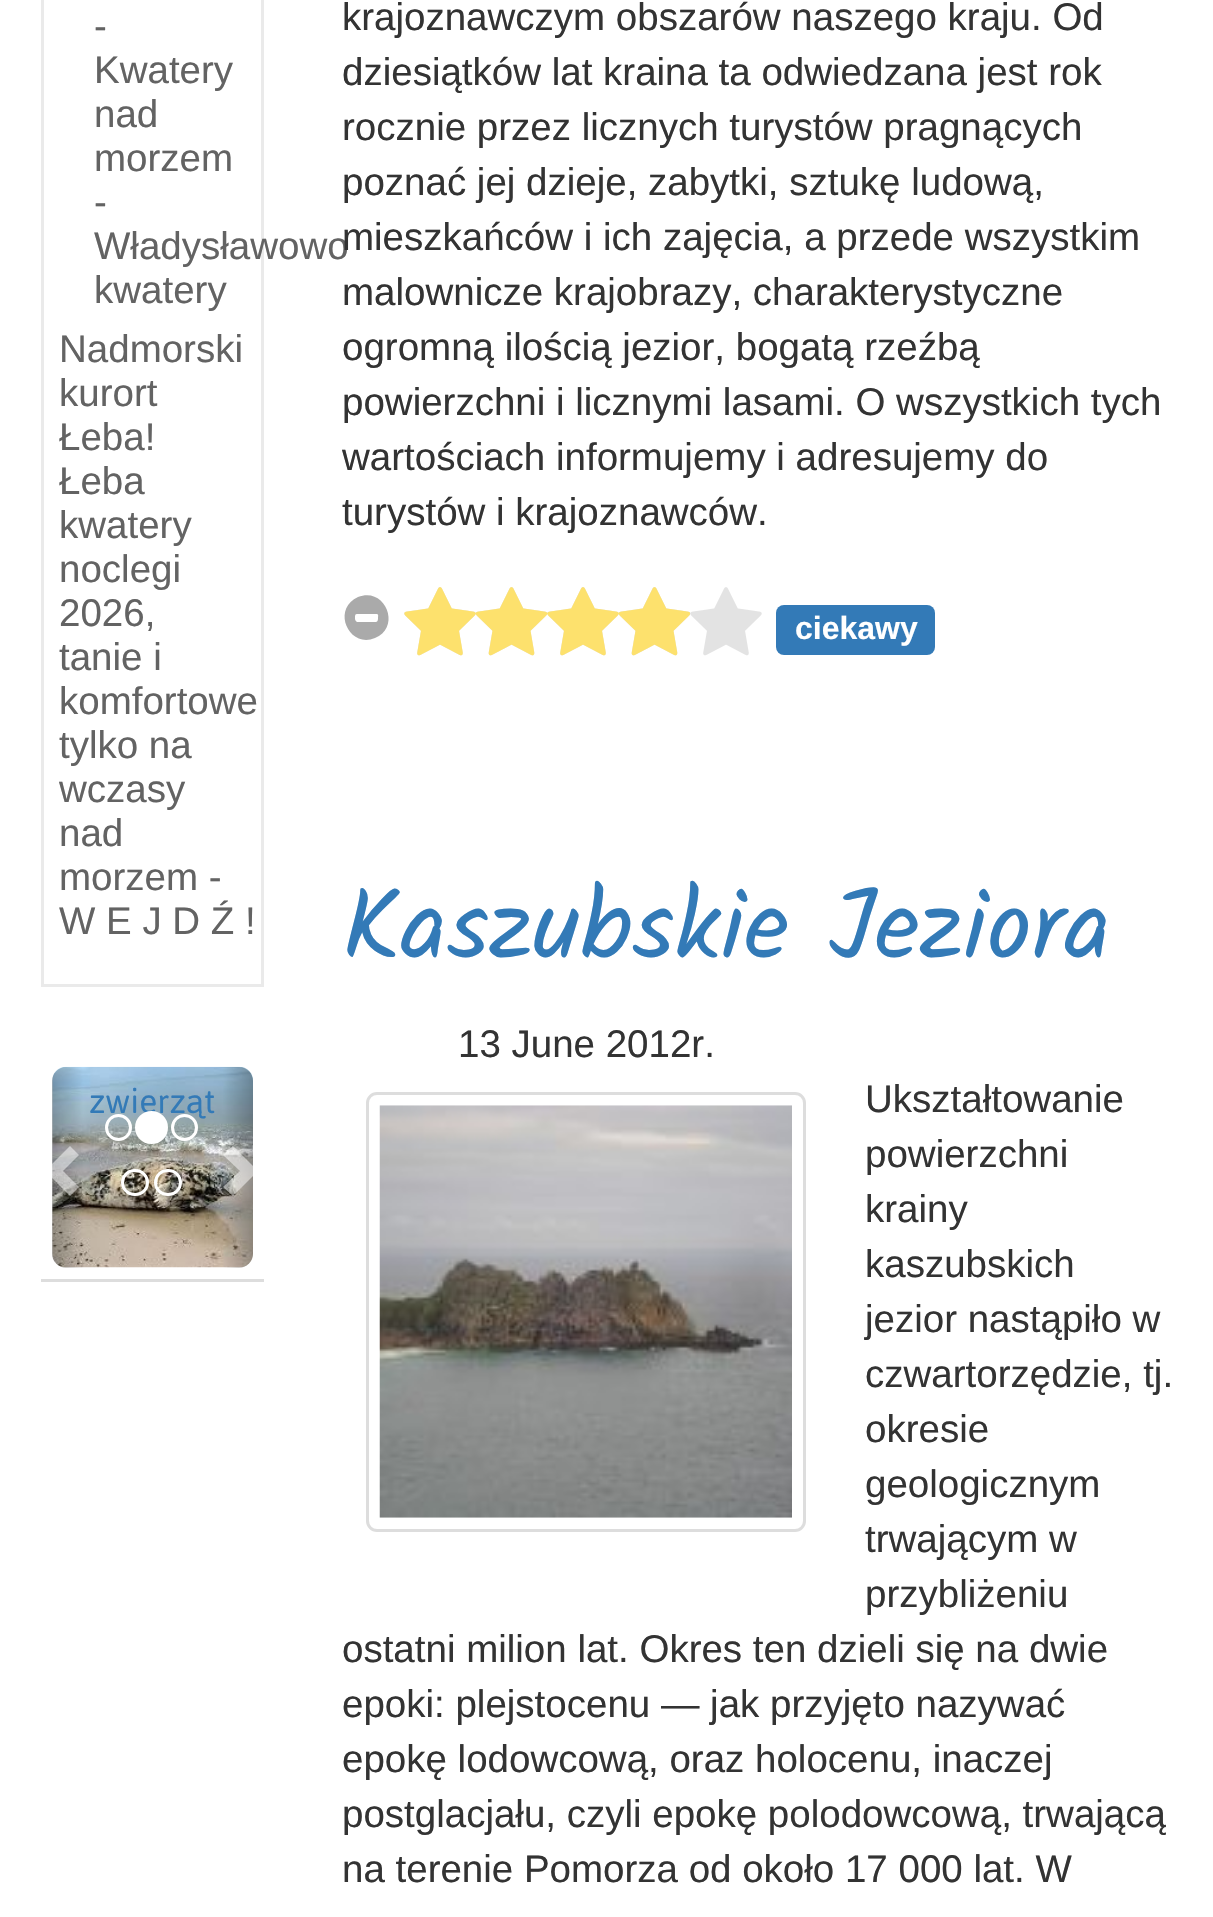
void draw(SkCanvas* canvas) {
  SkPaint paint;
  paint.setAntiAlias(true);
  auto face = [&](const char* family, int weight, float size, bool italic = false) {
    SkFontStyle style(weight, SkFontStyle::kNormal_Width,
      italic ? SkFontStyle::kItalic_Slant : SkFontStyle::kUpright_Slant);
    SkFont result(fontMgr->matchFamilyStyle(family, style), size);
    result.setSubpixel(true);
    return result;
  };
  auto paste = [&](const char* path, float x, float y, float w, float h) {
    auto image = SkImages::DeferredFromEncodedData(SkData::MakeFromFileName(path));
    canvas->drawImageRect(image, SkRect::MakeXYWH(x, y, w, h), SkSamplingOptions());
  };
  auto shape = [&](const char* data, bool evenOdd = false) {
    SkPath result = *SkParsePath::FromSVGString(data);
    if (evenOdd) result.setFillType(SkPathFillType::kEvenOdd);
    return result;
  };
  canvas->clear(0xffffffff);
  paint.setColor(0xffdddddd);
  canvas->drawRect(SkRect::MakeXYWH(41, 1279, 223, 3), paint);
  paint.setStroke(true);
  paint.setStrokeWidth(3);
  paint.setColor(0xffeaeaea);
  canvas->drawRect(SkRect::MakeXYWH(42.5f, -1.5f, 220, 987), paint);
  paste("img/1.png", 52, 1066, 201, 202);
  paint.setStroke(false);
  {
    const SkColor colors[] = {0x40000000, 0x00000000};
    const float stops[] = {0, 1};
    const SkPoint ends[] = {{52, 1167}, {83, 1167}};
    paint.setShader(SkGradientShader::MakeLinear(ends, colors, stops, 2, SkTileMode::kClamp));
    paint.setAlpha(255);
  }
  canvas->drawPath(shape("M66 1067H83V1268H66C58.5 1268 52 1261.5 52 1254V1081C52 1073.5 58.5 1067 66 1067Z"), paint);
  paint.setShader(nullptr);
  paint.setColor(0x80ffffff);
  canvas->drawPath(shape("M79 1155L63 1171L79 1187L70 1196L52 1178V1164L70 1146Z"), paint);
  {
    const SkColor colors[] = {0x00000000, 0x40000000};
    const float stops[] = {0, 1};
    const SkPoint ends[] = {{223, 1167}, {253, 1167}};
    paint.setShader(SkGradientShader::MakeLinear(ends, colors, stops, 2, SkTileMode::kClamp));
    paint.setAlpha(255);
  }
  canvas->drawPath(shape("M223 1067H239C246.5 1067 253 1073.5 253 1081V1254C253 1261.5 246.5 1268 239 1268H223Z"), paint);
  paint.setShader(nullptr);
  paint.setColor(0x80ffffff);
  canvas->drawPath(shape("M253 1166V1176L233 1196L223 1187L240 1171L223 1155L233 1146Z"), paint);
  paint.setStroke(true);
  paint.setColor(0xffffffff);
  canvas->drawRoundRect(SkRect::MakeXYWH(122.5f, 1170.5f, 25, 24), 12, 12, paint);
  canvas->drawRoundRect(SkRect::MakeXYWH(155.5f, 1170.5f, 25, 24), 12, 12, paint);
  paint.setStroke(false);
  paint.setColor(0xffaaaaaa);
  canvas->drawPath(shape("M358 597C385 586 402 627 375 638C349 649 331 609 358 597ZM376 614H360C356 614 355 613 355 618C355 619 355 621 357 622H370C376 622 378 623 378 618C378 616 379 614 376 614Z"), paint);
  paste("img/2.png", 404, 587, 358, 69);
  paste("img/3.png", 404, 587, 286, 69);
  paint.setColor(0xff337ab7);
  canvas->drawRoundRect(SkRect::MakeXYWH(776, 605, 159, 50), 8, 8, paint);
  paint.setStroke(true);
  paint.setColor(0xffdddddd);
  canvas->drawRoundRect(SkRect::MakeXYWH(367.5f, 1093.5f, 437, 437), 9.5f, 9.5f, paint);
  paste("img/4.png", 379, 1105, 413, 413);
  auto f0 = face("Liberation Sans", 400, 38.5f);
  paint.setStroke(false);
  paint.setColor(0xff636363);
  {
    const struct { const char* s; float x, y; } items[] = {
      {"-", 94, 39},
      {"Kwatery", 94, 83},
      {"nad", 94, 127},
      {"morzem", 94, 171},
      {"-", 94, 215},
      {"Władysławowo", 94, 259},
      {"kwatery", 94, 303},
      {"Nadmorski", 59, 362},
      {"kurort", 59, 406},
      {"Łeba!", 59, 450},
      {"Łeba", 59, 494},
      {"kwatery", 59, 538},
      {"noclegi", 59, 582},
      {"2026,", 59, 626},
      {"tanie i", 59, 670},
      {"komfortowe", 59, 714},
      {"tylko na", 59, 758},
      {"wczasy", 59, 802},
      {"nad", 59, 846},
      {"morzem -", 59, 890},
      {"W E J D Ź !", 59, 934},
    };
    for (auto [s, x, y] : items) {
      canvas->drawString(s, x, y, f0, paint);
    }
  }
  auto f1 = face("Jaldi", 400, 38.5f);
  paint.setColor(0xff337ab7);
  canvas->drawString("zwierząt", 89, 1113, f1, paint);
  paint.setStroke(true);
  paint.setColor(0xffffffff);
  canvas->drawCircle(118.5f, 1127.5f, 12, paint);
  paint.setStroke(false);
  canvas->drawCircle(151.5f, 1127.5f, 15, paint);
  paint.setStroke(true);
  canvas->drawCircle(151.5f, 1127.5f, 15, paint);
  canvas->drawCircle(184.5f, 1127.5f, 12, paint);
  paint.setStroke(false);
  paint.setColor(0xff333333);
  {
    const struct { const char* s; float x, y; } items[] = {
      {"krajoznawczym obszarów naszego kraju. Od", 342, 30},
      {"dziesiątków lat kraina ta odwiedzana jest rok", 342, 85},
      {"rocznie przez licznych turystów pragnących", 342, 140},
      {"poznać jej dzieje, zabytki, sztukę ludową,", 342, 195},
      {"mieszkańców i ich zajęcia, a przede wszystkim", 342, 250},
      {"malownicze krajobrazy, charakterystyczne", 342, 305},
      {"ogromną ilością jezior, bogatą rzeźbą", 342, 360},
      {"powierzchni i licznymi lasami. O wszystkich tych", 342, 415},
      {"wartościach informujemy i adresujemy do", 342, 470},
      {"turystów i krajoznawców.", 342, 525},
    };
    for (auto [s, x, y] : items) {
      canvas->drawString(s, x, y, f0, paint);
    }
  }
  auto f2 = face("Liberation Sans", 700, 32);
  paint.setColor(0xffffffff);
  canvas->drawString("ciekawy", 795, 639, f2, paint);
  auto f3 = face("Kalam", 400, 99);
  paint.setColor(0xff337ab7);
  canvas->drawString("Kaszubskie Jeziora", 342, 959, f3, paint);
  paint.setColor(0xff333333);
  {
    const struct { const char* s; float x, y; } items[] = {
      {"13 June 2012r.", 458, 1057},
      {"Ukształtowanie", 865, 1112},
      {"powierzchni", 865, 1167},
      {"krainy", 865, 1222},
      {"kaszubskich", 865, 1277},
      {"jezior nastąpiło w", 865, 1332},
      {"czwartorzędzie, tj.", 865, 1387},
      {"okresie", 865, 1442},
      {"geologicznym", 865, 1497},
      {"trwającym w", 865, 1552},
      {"przybliżeniu", 865, 1607},
      {"ostatni milion lat. Okres ten dzieli się na dwie", 342, 1662},
      {"epoki: plejstocenu — jak przyjęto nazywać", 342, 1717},
      {"epokę lodowcową, oraz holocenu, inaczej", 342, 1772},
      {"postglacjału, czyli epokę polodowcową, trwającą", 342, 1827},
      {"na terenie Pomorza od około 17 000 lat. W", 342, 1882},
    };
    for (auto [s, x, y] : items) {
      canvas->drawString(s, x, y, f0, paint);
    }
  }
}
